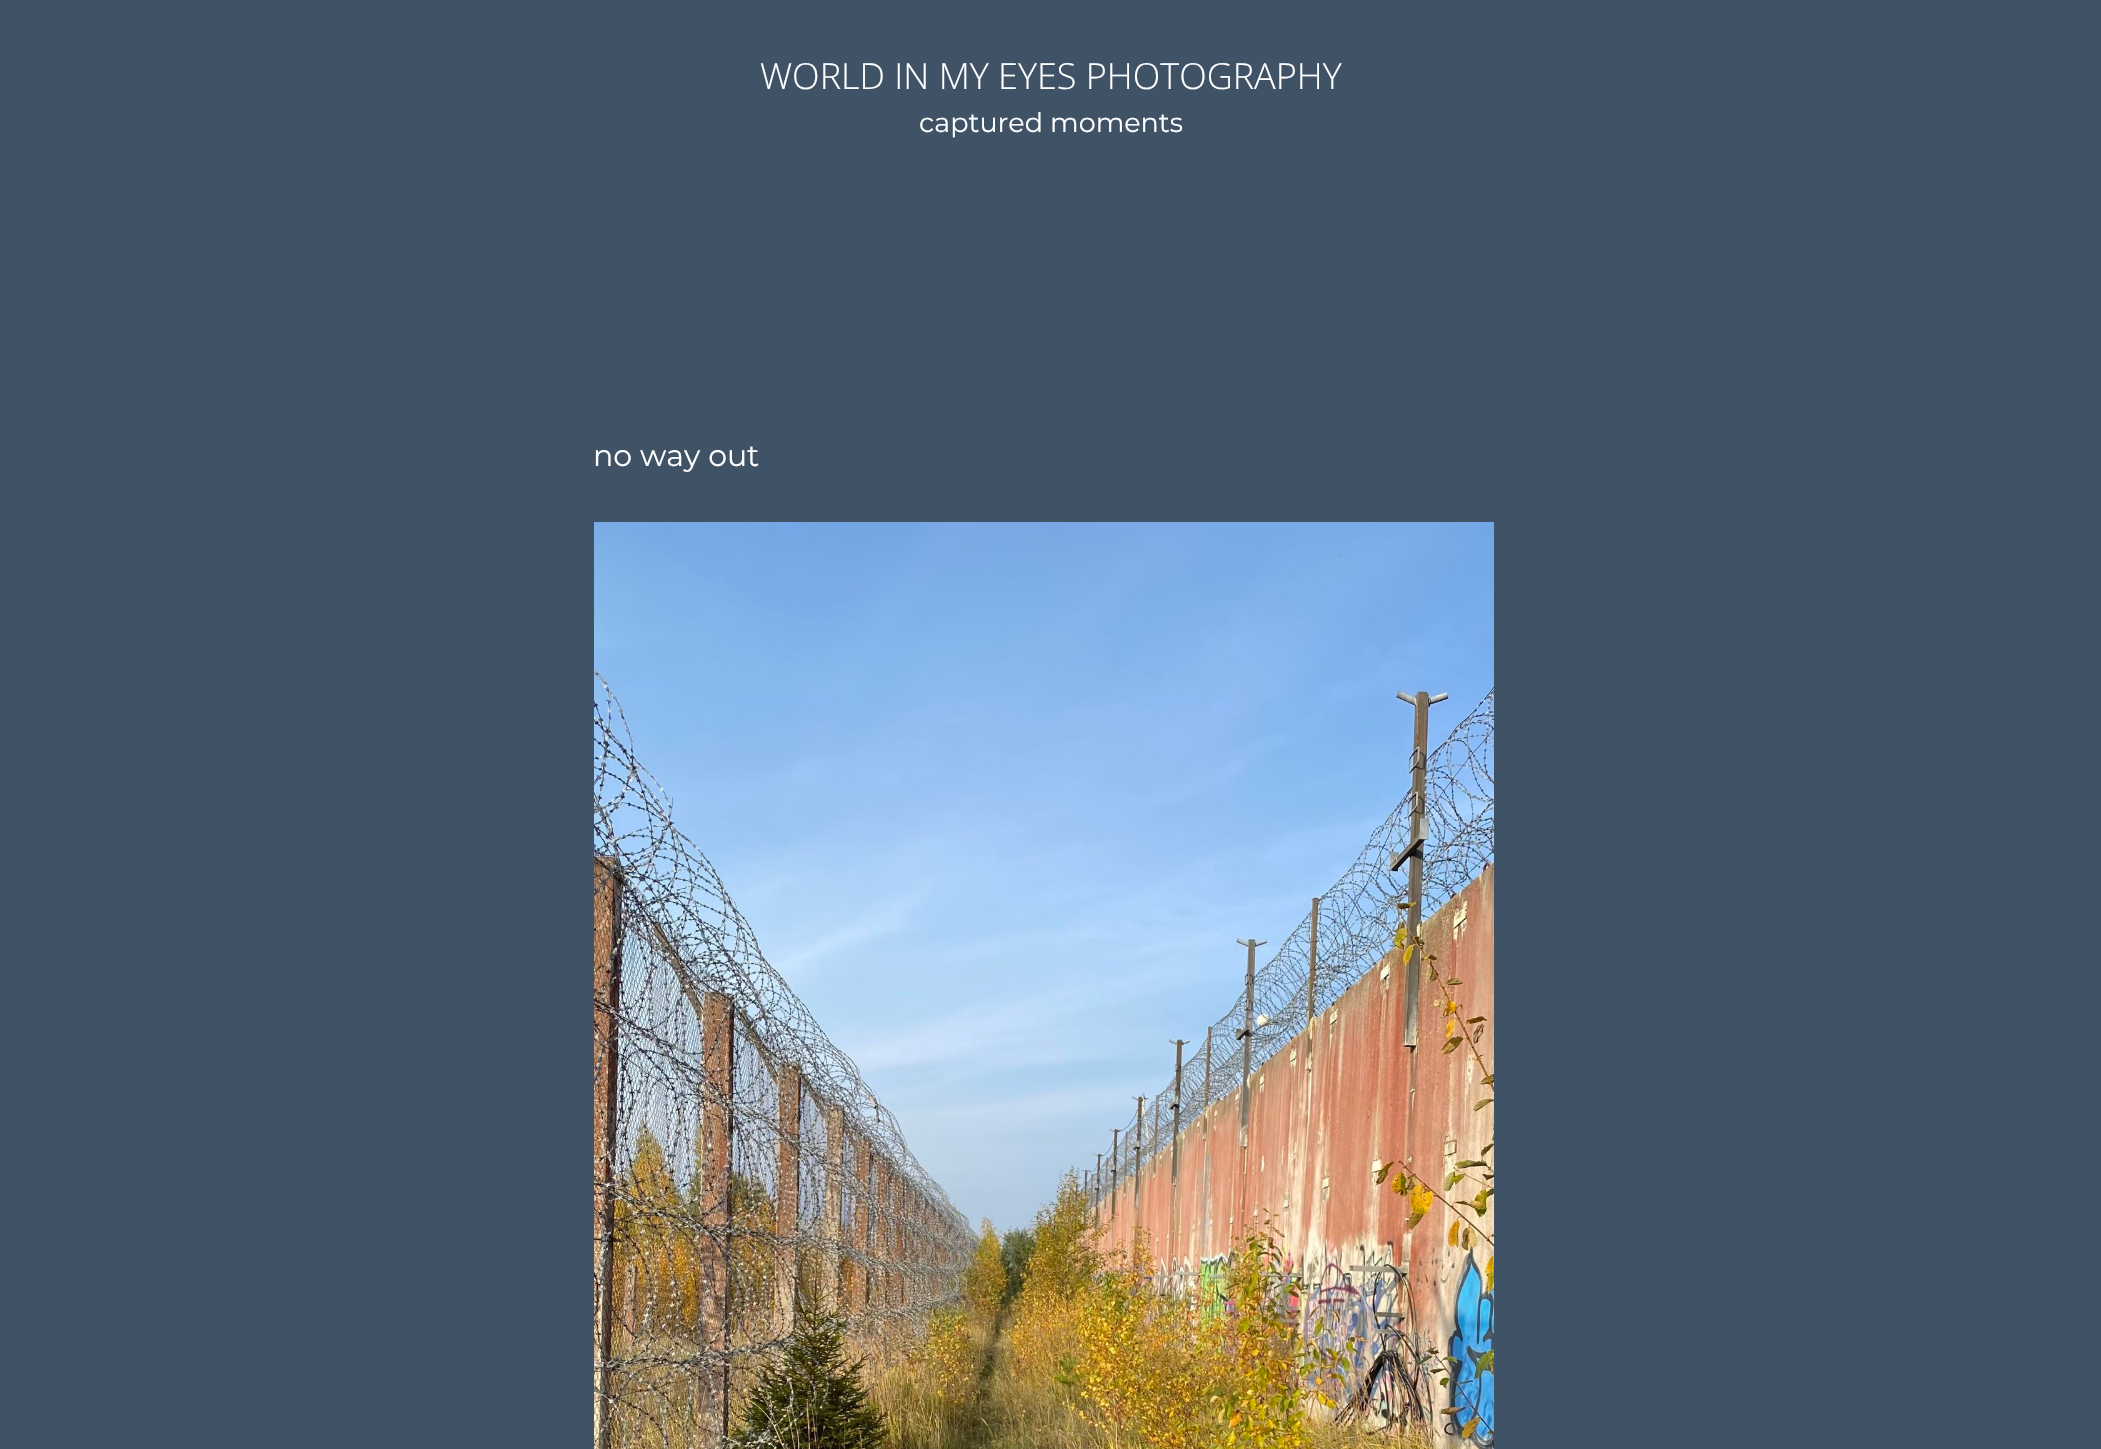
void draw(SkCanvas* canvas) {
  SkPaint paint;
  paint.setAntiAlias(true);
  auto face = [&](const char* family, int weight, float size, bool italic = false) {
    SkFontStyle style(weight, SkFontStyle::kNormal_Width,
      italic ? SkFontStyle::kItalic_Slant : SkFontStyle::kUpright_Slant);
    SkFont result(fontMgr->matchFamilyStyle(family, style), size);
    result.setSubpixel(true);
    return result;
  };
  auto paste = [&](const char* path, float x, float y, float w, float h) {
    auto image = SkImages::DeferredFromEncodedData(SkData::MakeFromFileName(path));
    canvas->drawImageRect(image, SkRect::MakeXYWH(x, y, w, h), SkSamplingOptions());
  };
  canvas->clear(0xff3f5266);
  paste("img/1.png", 594, 522, 900, 927);
  auto f0 = face("Open Sans", 300, 36);
  paint.setColor(0xffffffff);
  canvas->drawString("WORLD IN MY EYES PHOTOGRAPHY", 760, 89, f0, paint);
  auto f1 = face("Montserrat", 400, 27);
  canvas->drawString("captured moments", 919, 132, f1, paint);
  auto f2 = face("Montserrat", 400, 30);
  canvas->drawString("no way out", 593, 466, f2, paint);
}
